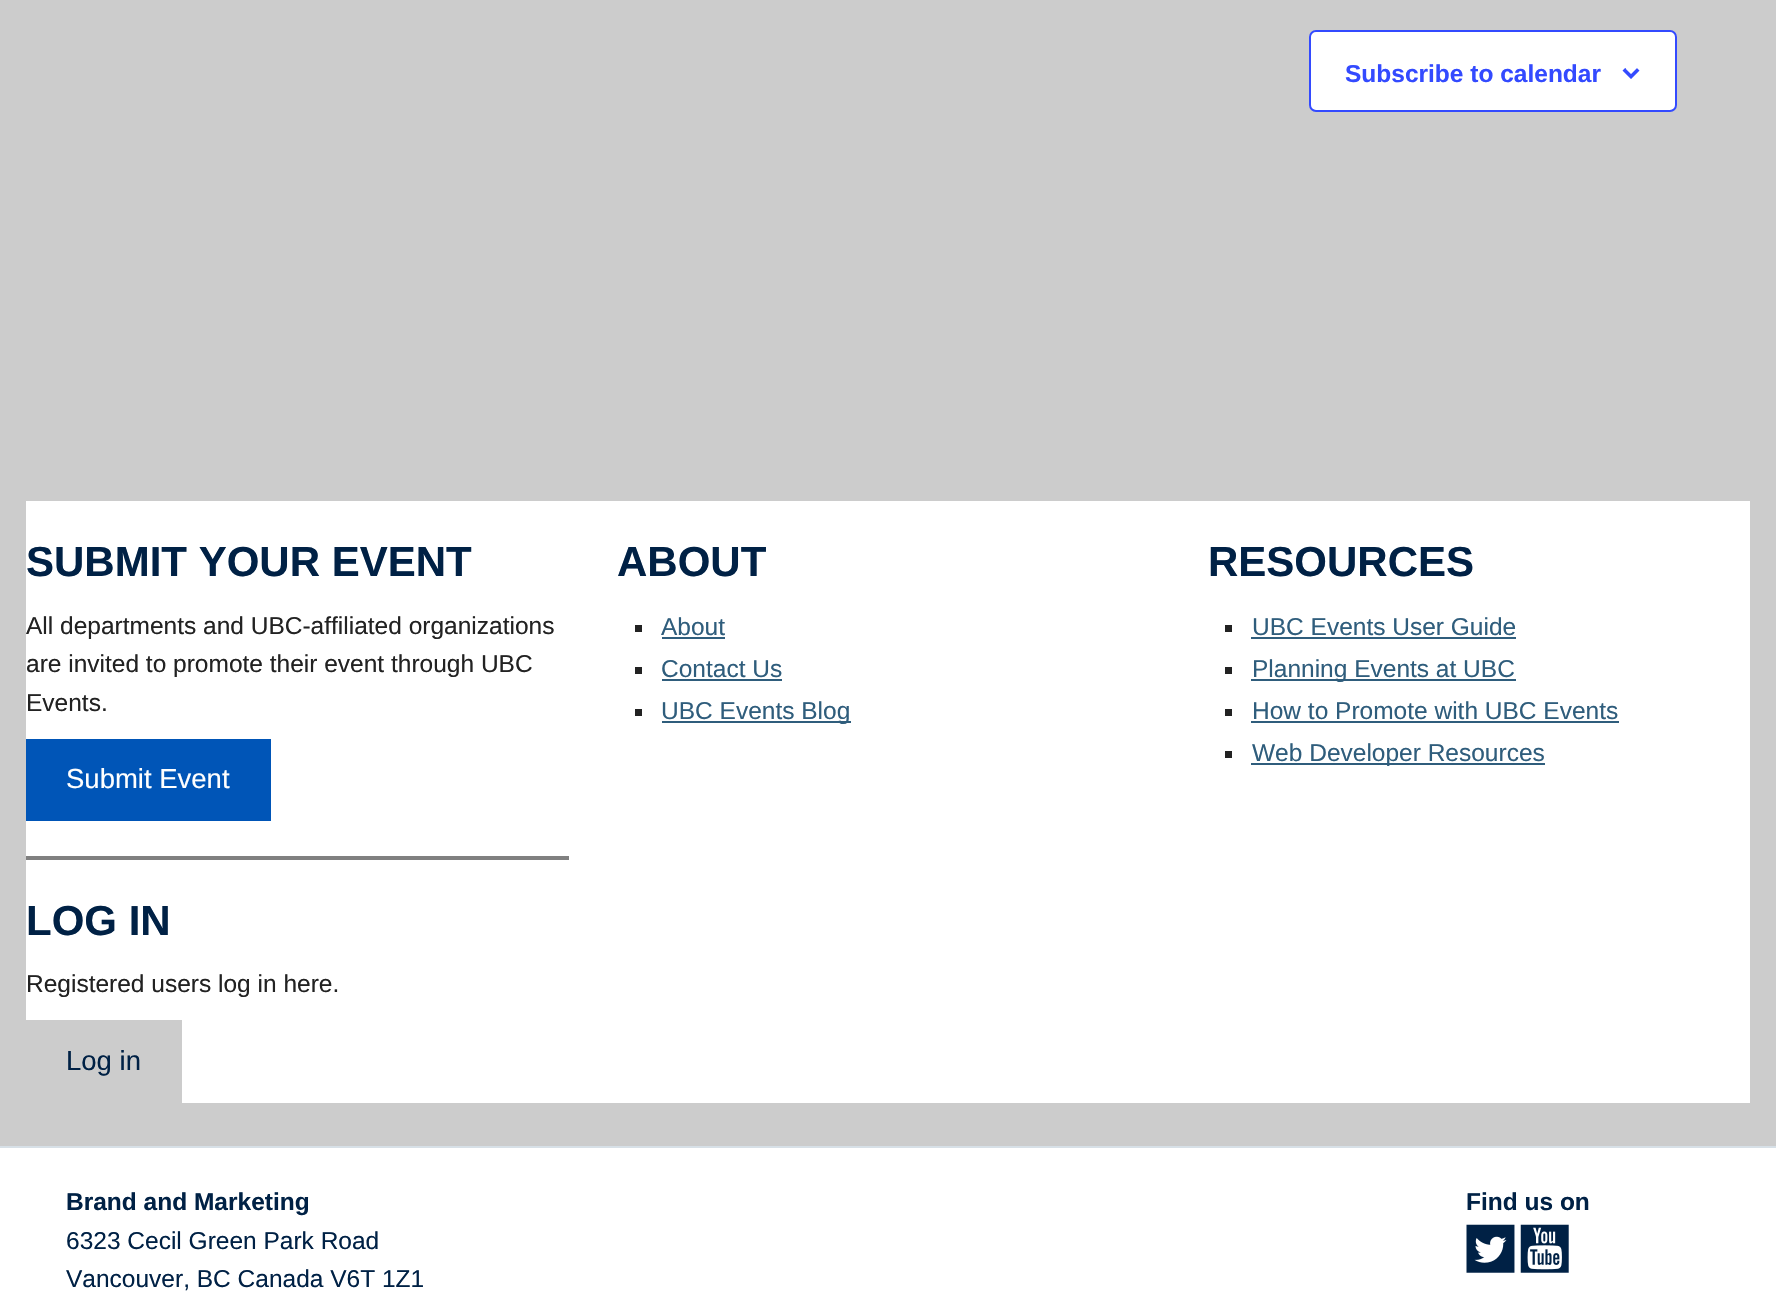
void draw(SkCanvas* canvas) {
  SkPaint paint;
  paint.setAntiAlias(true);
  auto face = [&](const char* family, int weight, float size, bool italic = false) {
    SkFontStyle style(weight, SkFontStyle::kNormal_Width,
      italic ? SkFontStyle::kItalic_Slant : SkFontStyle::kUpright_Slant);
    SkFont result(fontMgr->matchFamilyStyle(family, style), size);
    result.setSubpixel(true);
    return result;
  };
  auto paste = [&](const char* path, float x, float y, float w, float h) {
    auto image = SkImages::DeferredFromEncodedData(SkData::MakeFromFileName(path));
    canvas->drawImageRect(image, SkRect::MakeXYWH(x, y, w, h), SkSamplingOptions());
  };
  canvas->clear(0xffcccccc);
  paint.setColor(0xffffffff);
  canvas->drawRoundRect(SkRect::MakeXYWH(1310, 31, 366, 80), 6, 6, paint);
  paint.setStroke(true);
  paint.setStrokeWidth(2);
  paint.setColor(0xff334aff);
  canvas->drawRoundRect(SkRect::MakeXYWH(1310, 31, 366, 80), 6, 6, paint);
  paste("img/1.png", 1622, 68, 18, 11);
  paint.setStroke(false);
  {
    const struct { float x, y, w, h; SkColor color; } items[] = {
      {26, 501, 1724, 602, 0xffffffff},
      {26, 739, 245, 82, 0xff0055b7},
      {26, 856, 543, 4, 0xff808080},
      {26, 1020, 156, 83, 0xffcccccc},
      {635, 625, 7, 7, 0xff222222},
      {662, 637, 63, 2, 0xff2f5d7c},
      {635, 667, 7, 7, 0xff222222},
      {662, 679, 120, 2, 0xff2f5d7c},
      {635, 709, 7, 7, 0xff222222},
      {662, 721, 189, 2, 0xff2f5d7c},
      {1225, 625, 7, 7, 0xff222222},
      {1251, 637, 265, 2, 0xff2f5d7c},
      {1225, 667, 7, 7, 0xff222222},
      {1251, 679, 265, 2, 0xff2f5d7c},
      {1225, 709, 7, 7, 0xff222222},
      {1251, 721, 368, 2, 0xff2f5d7c},
      {1225, 751, 7, 7, 0xff222222},
      {1251, 763, 294, 2, 0xff2f5d7c},
      {0, 1148, 1776, 162, 0xffffffff},
      {0, 1146, 1776, 2, 0xffd7e0e7},
    };
    for (auto [x, y, w, h, color] : items) {
      paint.setColor(color);
      canvas->drawRect(SkRect::MakeXYWH(x, y, w, h), paint);
    }
  }
  paste("img/2.png", 1466, 1224, 49, 49);
  paste("img/3.png", 1520, 1224, 49, 49);
  auto f0 = face("Liberation Sans", 700, 24.5f);
  paint.setColor(0xff334aff);
  canvas->drawString("Subscribe to calendar", 1345, 82, f0, paint);
  auto f1 = face("Liberation Sans", 700, 42);
  paint.setColor(0xff002145);
  canvas->drawString("SUBMIT YOUR EVENT", 26, 576, f1, paint);
  auto f2 = face("Liberation Sans", 400, 24.5f);
  paint.setColor(0xff222222);
  {
    const struct { const char* s; float x, y; } items[] = {
      {"All departments and UBC-affiliated organizations", 26, 634},
      {"are invited to promote their event through UBC", 26, 672},
      {"Events.", 26, 711},
    };
    for (auto [s, x, y] : items) {
      canvas->drawString(s, x, y, f2, paint);
    }
  }
  auto f3 = face("Liberation Sans", 400, 27.5f);
  paint.setColor(0xffffffff);
  canvas->drawString("Submit Event", 66, 788, f3, paint);
  paint.setColor(0xff002145);
  canvas->drawString("LOG IN", 26, 935, f1, paint);
  paint.setColor(0xff222222);
  canvas->drawString("Registered users log in here.", 26, 992, f2, paint);
  paint.setColor(0xff002145);
  canvas->drawString("Log in", 66, 1070, f3, paint);
  canvas->drawString("ABOUT", 617, 576, f1, paint);
  paint.setColor(0xff2f5d7c);
  {
    const struct { const char* s; float x, y; } items[] = {
      {"About", 661, 635},
      {"Contact Us", 661, 677},
      {"UBC Events Blog", 661, 719},
    };
    for (auto [s, x, y] : items) {
      canvas->drawString(s, x, y, f2, paint);
    }
  }
  paint.setColor(0xff002145);
  canvas->drawString("RESOURCES", 1208, 576, f1, paint);
  paint.setColor(0xff2f5d7c);
  {
    const struct { const char* s; float x, y; } items[] = {
      {"UBC Events User Guide", 1252, 635},
      {"Planning Events at UBC", 1252, 677},
      {"How to Promote with UBC Events", 1252, 719},
      {"Web Developer Resources", 1252, 761},
    };
    for (auto [s, x, y] : items) {
      canvas->drawString(s, x, y, f2, paint);
    }
  }
  paint.setColor(0xff002145);
  canvas->drawString("Brand and Marketing", 66, 1210, f0, paint);
  canvas->drawString("6323 Cecil Green Park Road", 66, 1249, f2, paint);
  canvas->drawString("Vancouver, BC Canada V6T 1Z1", 66, 1287, f2, paint);
  canvas->drawString("Find us on", 1466, 1210, f0, paint);
}
